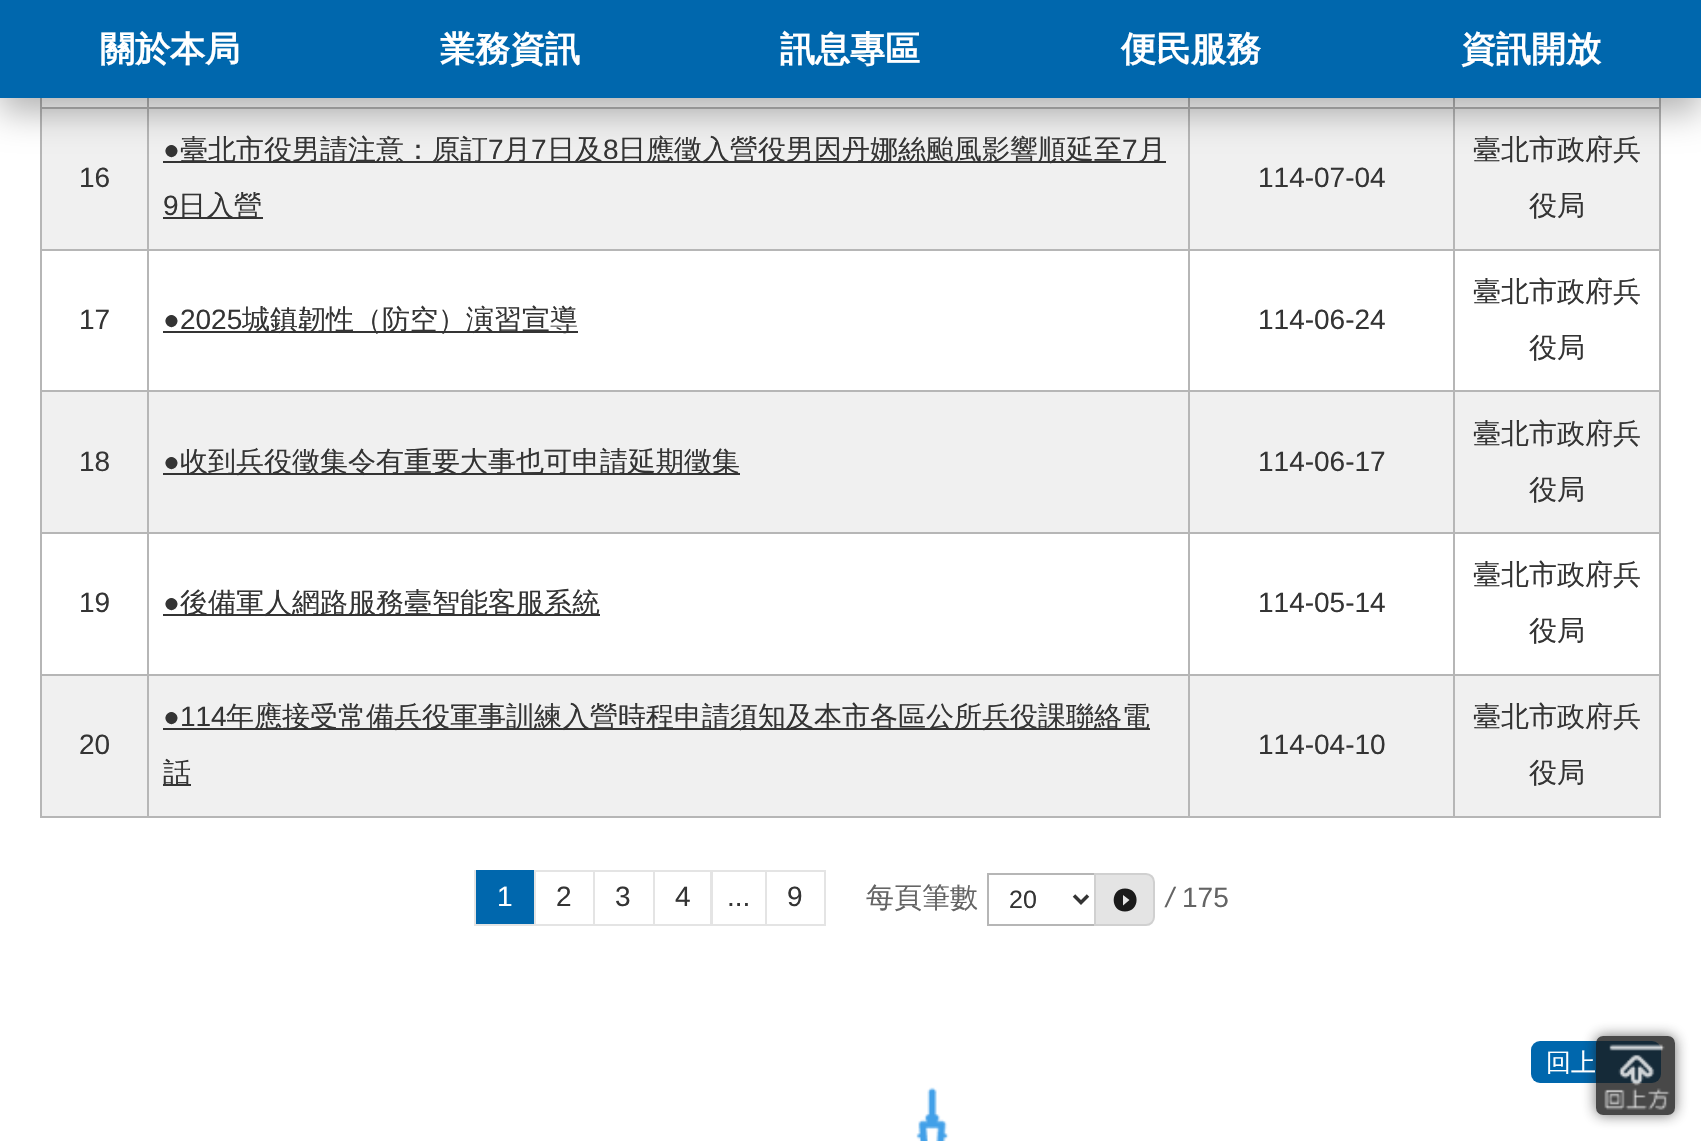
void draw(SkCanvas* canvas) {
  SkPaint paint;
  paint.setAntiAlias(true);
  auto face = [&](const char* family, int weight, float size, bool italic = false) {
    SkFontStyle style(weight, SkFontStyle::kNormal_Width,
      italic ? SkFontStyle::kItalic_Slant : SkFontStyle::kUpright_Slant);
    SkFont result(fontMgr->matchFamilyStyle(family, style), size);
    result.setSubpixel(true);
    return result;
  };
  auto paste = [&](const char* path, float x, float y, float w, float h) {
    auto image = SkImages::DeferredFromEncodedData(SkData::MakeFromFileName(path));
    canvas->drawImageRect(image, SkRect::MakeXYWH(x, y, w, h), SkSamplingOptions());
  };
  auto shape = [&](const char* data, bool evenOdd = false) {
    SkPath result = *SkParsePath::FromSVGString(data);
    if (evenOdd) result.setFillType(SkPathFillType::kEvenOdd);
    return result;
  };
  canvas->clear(0xffffffff);
  {
    const struct { float x, y, w, h; SkColor color; } items[] = {
      {1453, 107, 208, 2, 0xffb6b6b6},
      {42, 109, 1617, 140, 0xfff0f0f0},
      {1453, 249, 208, 2, 0xffb6b6b6},
      {1453, 390, 208, 2, 0xffb6b6b6},
      {42, 392, 1617, 140, 0xfff0f0f0},
      {1453, 532, 208, 2, 0xffb6b6b6},
      {1453, 674, 208, 2, 0xffb6b6b6},
      {42, 676, 1617, 140, 0xfff0f0f0},
      {1659, 674, 2, 143, 0xffb6b6b6},
      {1453, 816, 208, 2, 0xffb6b6b6},
      {1453, 674, 2, 143, 0xffb6b6b6},
      {1188, 674, 266, 2, 0xffb6b6b6},
      {1453, 532, 2, 144, 0xffb6b6b6},
      {1188, 532, 266, 2, 0xffb6b6b6},
      {1453, 390, 2, 144, 0xffb6b6b6},
      {1188, 390, 266, 2, 0xffb6b6b6},
      {1453, 249, 2, 143, 0xffb6b6b6},
      {1188, 249, 266, 2, 0xffb6b6b6},
      {1453, 107, 2, 143, 0xffb6b6b6},
      {1188, 107, 266, 2, 0xffb6b6b6},
      {1188, 816, 266, 2, 0xffb6b6b6},
      {1188, 674, 2, 143, 0xffb6b6b6},
      {147, 674, 1043, 2, 0xffb6b6b6},
      {1188, 532, 2, 144, 0xffb6b6b6},
      {147, 532, 1043, 2, 0xffb6b6b6},
      {1188, 390, 2, 144, 0xffb6b6b6},
      {147, 390, 1043, 2, 0xffb6b6b6},
      {1188, 249, 2, 143, 0xffb6b6b6},
      {147, 249, 1043, 2, 0xffb6b6b6},
      {1188, 107, 2, 143, 0xffb6b6b6},
      {147, 107, 1043, 2, 0xffb6b6b6},
      {147, 816, 1043, 2, 0xffb6b6b6},
      {147, 674, 2, 143, 0xffb6b6b6},
      {40, 674, 109, 2, 0xffb6b6b6},
      {147, 532, 2, 144, 0xffb6b6b6},
      {40, 532, 109, 2, 0xffb6b6b6},
      {147, 390, 2, 144, 0xffb6b6b6},
      {40, 390, 109, 2, 0xffb6b6b6},
      {147, 249, 2, 143, 0xffb6b6b6},
      {40, 249, 109, 2, 0xffb6b6b6},
      {147, 107, 2, 143, 0xffb6b6b6},
      {40, 107, 109, 2, 0xffb6b6b6},
      {147, 98, 2, 11, 0xffb6b6b6},
      {1188, 98, 2, 11, 0xffb6b6b6},
      {1453, 98, 2, 11, 0xffb6b6b6},
      {40, 816, 109, 2, 0xffb6b6b6},
      {40, 674, 2, 143, 0xffb6b6b6},
      {40, 532, 2, 144, 0xffb6b6b6},
      {40, 390, 2, 144, 0xffb6b6b6},
      {40, 249, 2, 143, 0xffb6b6b6},
      {40, 98, 2, 152, 0xffb6b6b6},
      {163, 161, 1003, 2, 0xff343434},
      {1659, 532, 2, 144, 0xffb6b6b6},
      {1659, 390, 2, 144, 0xffb6b6b6},
      {1659, 249, 2, 143, 0xffb6b6b6},
      {1659, 98, 2, 152, 0xffb6b6b6},
    };
    for (auto [x, y, w, h, color] : items) {
      paint.setColor(color);
      canvas->drawRect(SkRect::MakeXYWH(x, y, w, h), paint);
    }
  }
  paint.setColor(0x4d000000);
  paint.setMaskFilter(SkMaskFilter::MakeBlur(kNormal_SkBlurStyle, 17.5f));
  canvas->drawRect(SkRect::MakeXYWH(0, 14, 1701, 98), paint);
  paint.setMaskFilter(nullptr);
  paint.setColor(0xff0067ad);
  canvas->drawRect(SkRect::MakeXYWH(0, 0, 1701, 98), paint);
  paste("img/1.png", 916, 1087, 33, 54);
  {
    const struct { float x, y, w, h; SkColor color; } items[] = {
      {163, 217, 100, 2, 0xff343434},
      {163, 331, 415, 2, 0xff343434},
      {163, 473, 577, 2, 0xff343434},
      {163, 614, 437, 2, 0xff343434},
      {163, 728, 987, 2, 0xff343434},
      {163, 784, 28, 2, 0xff343434},
    };
    for (auto [x, y, w, h, color] : items) {
      paint.setColor(color);
      canvas->drawRect(SkRect::MakeXYWH(x, y, w, h), paint);
    }
  }
  paint.setStroke(true);
  paint.setStrokeWidth(2);
  paint.setColor(0xffe4e4e4);
  canvas->drawRect(SkRect::MakeXYWH(475, 871, 60, 54), paint);
  paint.setStroke(false);
  paint.setColor(0xff0067ad);
  canvas->drawRect(SkRect::MakeXYWH(476, 870, 58, 54), paint);
  paint.setStroke(true);
  paint.setColor(0xffe4e4e4);
  canvas->drawRect(SkRect::MakeXYWH(535, 871, 59, 54), paint);
  canvas->drawRect(SkRect::MakeXYWH(594, 871, 60, 54), paint);
  canvas->drawRect(SkRect::MakeXYWH(654, 871, 57, 54), paint);
  canvas->drawRect(SkRect::MakeXYWH(712, 871, 54, 54), paint);
  canvas->drawRect(SkRect::MakeXYWH(766, 871, 59, 54), paint);
  paint.setColor(0xffb6b6b6);
  canvas->drawRect(SkRect::MakeXYWH(988, 874, 108, 51), paint);
  paint.setStrokeWidth(3.5f);
  paint.setColor(0xff343434);
  canvas->drawPath(shape("M1074 895.5L1081 902.5L1088 895.5"), paint);
  paint.setStroke(false);
  paint.setColor(0xffe4e4e4);
  canvas->drawPath(shape("M1095 874H1146C1150.5 874 1154 877.5 1154 882V917C1154 921.5 1150.5 925 1146 925H1095Z"), paint);
  paint.setStroke(true);
  paint.setStrokeWidth(2);
  paint.setColor(0xffd0d0d0);
  canvas->drawPath(shape("M1095 874H1146C1150.5 874 1154 877.5 1154 882V917C1154 921.5 1150.5 925 1146 925H1095Z"), paint);
  paint.setStroke(false);
  paint.setColor(0xff1a1a1a);
  canvas->drawPath(shape("M1123 905.5L1129.5 900L1123 895ZM1125 888.5C1140.5 888.5 1140.5 911.5 1125 911.5C1110 911.5 1110 888.5 1125 888.5Z"), paint);
  paint.setColor(0xff0067ad);
  canvas->drawRoundRect(SkRect::MakeXYWH(1531, 1041, 130, 42), 9, 9, paint);
  canvas->save();
  canvas->clipPath(shape("M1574 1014H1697V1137H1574ZM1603 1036H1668C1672 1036 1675 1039 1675 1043V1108C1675 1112 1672 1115 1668 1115H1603C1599 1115 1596 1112 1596 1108V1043C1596 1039 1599 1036 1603 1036Z", true), true);
  paint.setColor(0xa31a1a1a);
  paint.setMaskFilter(SkMaskFilter::MakeBlur(kNormal_SkBlurStyle, 7));
  canvas->drawRoundRect(SkRect::MakeXYWH(1596, 1036, 79, 79), 7, 7, paint);
  paint.setMaskFilter(nullptr);
  canvas->restore();
  paint.setColor(0xcc1a1a1a);
  canvas->drawRoundRect(SkRect::MakeXYWH(1596, 1036, 79, 79), 7, 7, paint);
  paste("img/2.png", 1604, 1044, 66, 66);
  auto f0 = face("WenQuanYi Zen Hei", 700, 35);
  paint.setColor(0xffffffff);
  {
    const struct { const char* s; float x, y; } items[] = {
      {"關於本局", 100, 61},
      {"業務資訊", 440, 61},
      {"訊息專區", 780, 61},
      {"便民服務", 1121, 61},
      {"資訊開放", 1461, 61},
    };
    for (auto [s, x, y] : items) {
      canvas->drawString(s, x, y, f0, paint);
    }
  }
  auto f1 = face("Liberation Sans", 400, 28);
  paint.setColor(0xff343434);
  canvas->drawString("16", 79, 187, f1, paint);
  canvas->drawString("●", 163, 159, f1, paint);
  auto f2 = face("WenQuanYi Zen Hei", 500, 28);
  canvas->drawString("臺北市役男請注意：原訂", 180, 159, f2, paint);
  canvas->drawString("7", 488, 159, f1, paint);
  canvas->drawString("月", 503, 159, f2, paint);
  canvas->drawString("7", 531, 159, f1, paint);
  canvas->drawString("日及", 547, 159, f2, paint);
  canvas->drawString("8", 603, 159, f1, paint);
  canvas->drawString("日應徵入營役男因丹娜絲颱風影響順延至", 618, 159, f2, paint);
  canvas->drawString("7", 1122, 159, f1, paint);
  canvas->drawString("月", 1138, 159, f2, paint);
  canvas->drawString("9", 163, 215, f1, paint);
  canvas->drawString("日入營", 178, 215, f2, paint);
  canvas->drawString("114-07-04", 1258, 187, f1, paint);
  canvas->drawString("臺北市政府兵", 1473, 159, f2, paint);
  canvas->drawString("役局", 1529, 215, f2, paint);
  canvas->drawString("17", 79, 329, f1, paint);
  canvas->drawString("●2025", 163, 329, f1, paint);
  canvas->drawString("城鎮韌性（防空）演習宣導", 242, 329, f2, paint);
  canvas->drawString("114-06-24", 1258, 329, f1, paint);
  canvas->drawString("臺北市政府兵", 1473, 301, f2, paint);
  canvas->drawString("役局", 1529, 357, f2, paint);
  canvas->drawString("18", 79, 471, f1, paint);
  canvas->drawString("●", 163, 471, f1, paint);
  canvas->drawString("收到兵役徵集令有重要大事也可申請延期徵集", 180, 471, f2, paint);
  canvas->drawString("114-06-17", 1258, 471, f1, paint);
  canvas->drawString("臺北市政府兵", 1473, 443, f2, paint);
  canvas->drawString("役局", 1529, 499, f2, paint);
  canvas->drawString("19", 79, 612, f1, paint);
  canvas->drawString("●", 163, 612, f1, paint);
  canvas->drawString("後備軍人網路服務臺智能客服系統", 180, 612, f2, paint);
  canvas->drawString("114-05-14", 1258, 612, f1, paint);
  canvas->drawString("臺北市政府兵", 1473, 584, f2, paint);
  canvas->drawString("役局", 1529, 640, f2, paint);
  canvas->drawString("20", 79, 754, f1, paint);
  canvas->drawString("●114", 163, 726, f1, paint);
  canvas->drawString("年應接受常備兵役軍事訓練入營時程申請須知及本市各區公所兵役課聯絡電", 226, 726, f2, paint);
  canvas->drawString("話", 163, 782, f2, paint);
  canvas->drawString("114-04-10", 1258, 754, f1, paint);
  canvas->drawString("臺北市政府兵", 1473, 726, f2, paint);
  canvas->drawString("役局", 1529, 782, f2, paint);
  paint.setColor(0xffffffff);
  canvas->drawString("1", 497, 906, f1, paint);
  paint.setColor(0xff343434);
  {
    const struct { const char* s; float x, y; } items[] = {
      {"2", 556, 906},
      {"3", 615, 906},
      {"4", 675, 906},
      {"...", 727, 906},
      {"9", 787, 906},
    };
    for (auto [s, x, y] : items) {
      canvas->drawString(s, x, y, f1, paint);
    }
  }
  paint.setColor(0xff646464);
  canvas->drawString("每頁筆數", 866, 907, f2, paint);
  auto f3 = face("Liberation Sans", 400, 25);
  paint.setColor(0xff343434);
  canvas->drawString("20", 1009, 908, f3, paint);
  auto f4 = face("Liberation Sans", 400, 28, true);
  paint.setColor(0xff646464);
  canvas->drawString("/", 1166, 907, f4, paint);
  canvas->drawString("175", 1182, 907, f1, paint);
  auto f5 = face("WenQuanYi Zen Hei", 500, 25);
  paint.setColor(0xffffffff);
  canvas->drawString("回上", 1546, 1071, f5, paint);
}
